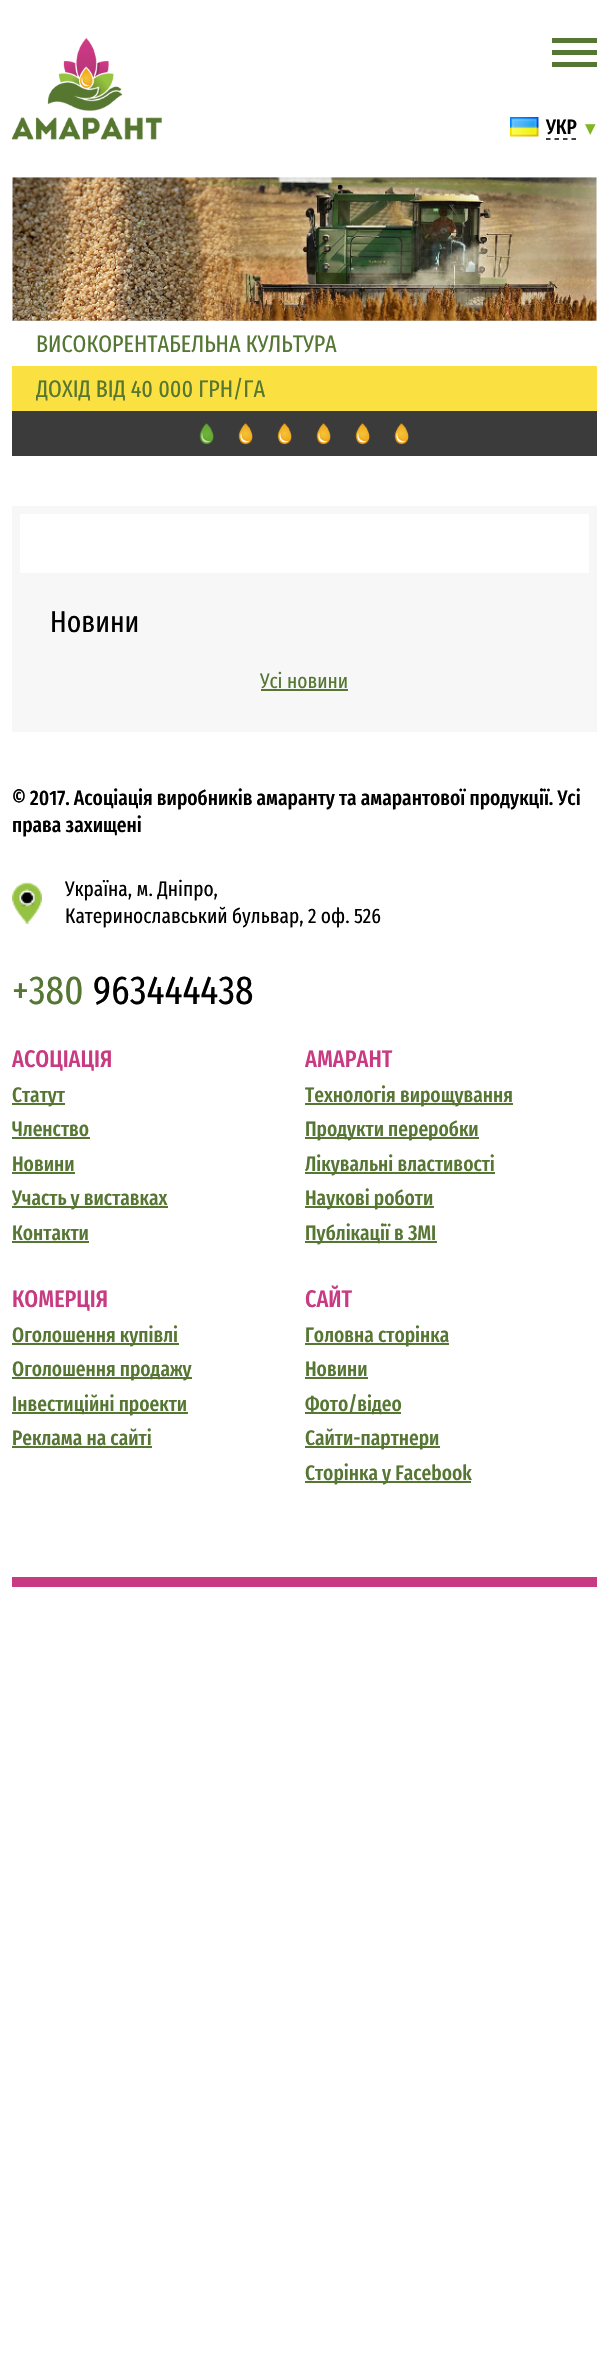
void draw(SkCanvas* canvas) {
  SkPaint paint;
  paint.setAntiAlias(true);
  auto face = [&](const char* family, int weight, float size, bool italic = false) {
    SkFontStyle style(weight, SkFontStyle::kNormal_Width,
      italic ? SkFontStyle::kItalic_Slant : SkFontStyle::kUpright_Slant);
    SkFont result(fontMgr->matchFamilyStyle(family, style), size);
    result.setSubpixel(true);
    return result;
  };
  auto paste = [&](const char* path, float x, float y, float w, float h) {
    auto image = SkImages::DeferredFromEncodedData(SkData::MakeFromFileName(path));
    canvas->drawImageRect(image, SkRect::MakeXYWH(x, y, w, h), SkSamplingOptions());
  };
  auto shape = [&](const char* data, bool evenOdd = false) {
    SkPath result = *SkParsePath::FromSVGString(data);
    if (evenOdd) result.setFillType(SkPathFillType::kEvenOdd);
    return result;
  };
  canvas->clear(0xffffffff);
  paste("img/1.png", 12, 37, 150, 103);
  {
    const struct { float x, y, w, h; SkColor color; } items[] = {
      {552, 38, 45, 5, 0xff567633},
      {552, 50, 45, 5, 0xff567633},
      {552, 62, 45, 5, 0xff567633},
    };
    for (auto [x, y, w, h, color] : items) {
      paint.setColor(color);
      canvas->drawRect(SkRect::MakeXYWH(x, y, w, h), paint);
    }
  }
  paste("img/2.png", 510, 117, 29, 20);
  paint.setStroke(true);
  paint.setStrokeWidth(1.5f);
  paint.setColor(0xff000000);
  paint.setPathEffect(SkDashPathEffect::Make({{4.5f, 4}}, 0));
  canvas->drawPath(shape("M546 139H576"), paint);
  paint.setPathEffect(nullptr);
  paste("img/3.png", 12, 177, 585, 144);
  paint.setStroke(false);
  paint.setColor(0xfffae040);
  canvas->drawRect(SkRect::MakeXYWH(12, 366, 585, 45), paint);
  paint.setColor(0xff3b3b3b);
  canvas->drawRect(SkRect::MakeXYWH(12, 411, 585, 45), paint);
  paste("img/4.png", 199, 423, 15, 22);
  paste("img/5.png", 238, 422, 15, 23);
  paste("img/5.png", 277, 422, 15, 23);
  paste("img/5.png", 316, 422, 15, 23);
  paste("img/5.png", 355, 422, 15, 23);
  paste("img/5.png", 394, 422, 15, 23);
  paint.setStroke(true);
  paint.setStrokeWidth(8);
  paint.setColor(0xfff7f7f7);
  canvas->drawRect(SkRect::MakeXYWH(16, 510, 577, 218), paint);
  paint.setStroke(false);
  {
    const struct { float x, y, w, h; SkColor color; } items[] = {
      {20, 573, 569, 151, 0xfff7f7f7},
      {261, 689, 87, 2, 0xff567633},
      {12, 1577, 585, 10, 0xffc83b82},
    };
    for (auto [x, y, w, h, color] : items) {
      paint.setColor(color);
      canvas->drawRect(SkRect::MakeXYWH(x, y, w, h), paint);
    }
  }
  paste("img/6.png", 12, 882, 30, 42);
  {
    const struct { float x, y, w, h; SkColor color; } items[] = {
      {12, 1103, 53, 2, 0xff567633},
      {12, 1137, 78, 2, 0xff567633},
      {12, 1172, 63, 2, 0xff567633},
      {12, 1206, 156, 2, 0xff567633},
      {12, 1241, 77, 2, 0xff567633},
      {305, 1103, 208, 2, 0xff567633},
      {305, 1137, 174, 2, 0xff567633},
      {305, 1172, 190, 2, 0xff567633},
      {305, 1206, 129, 2, 0xff567633},
      {305, 1241, 132, 2, 0xff567633},
      {12, 1343, 167, 2, 0xff567633},
      {12, 1377, 180, 2, 0xff567633},
      {12, 1412, 176, 2, 0xff567633},
      {12, 1446, 140, 2, 0xff567633},
      {305, 1343, 144, 2, 0xff567633},
      {305, 1377, 63, 2, 0xff567633},
      {305, 1412, 96, 2, 0xff567633},
      {305, 1446, 135, 2, 0xff567633},
      {305, 1481, 166, 2, 0xff567633},
    };
    for (auto [x, y, w, h, color] : items) {
      paint.setColor(color);
      canvas->drawRect(SkRect::MakeXYWH(x, y, w, h), paint);
    }
  }
  auto f0 = face("Fira Sans Extra Condensed", 500, 21);
  paint.setColor(0xff000000);
  canvas->drawString("УКР", 546, 134, f0, paint);
  auto f1 = face("DejaVu Sans", 400, 21);
  paint.setColor(0xff82b521);
  canvas->drawString("▾", 585, 135, f1, paint);
  auto f2 = face("Fira Sans Extra Condensed", 400, 24);
  paint.setColor(0xff567633);
  canvas->drawString("ВИСОКОРЕНТАБЕЛЬНА КУЛЬТУРА", 36, 352, f2, paint);
  canvas->drawString("ДОХІД ВІД 40 000 ГРН/ГА", 36, 397, f2, paint);
  auto f3 = face("Fira Sans Extra Condensed", 400, 30);
  paint.setColor(0xff000000);
  canvas->drawString("Новини", 50, 632, f3, paint);
  auto f4 = face("Fira Sans Extra Condensed", 400, 21);
  paint.setColor(0xff567633);
  canvas->drawString("Усі новини", 260, 688, f4, paint);
  paint.setColor(0xff000000);
  canvas->drawString("© 2017. Асоціація виробників амаранту та амарантової продукції. Усі", 12, 805, f0, paint);
  canvas->drawString("права захищені", 12, 832, f0, paint);
  canvas->drawString("Україна, м. Дніпро,", 65, 896, f4, paint);
  canvas->drawString("Катеринославський бульвар, 2 оф. 526", 65, 923, f4, paint);
  auto f5 = face("Fira Sans Extra Condensed", 400, 40.5f);
  paint.setColor(0xff567633);
  canvas->drawString("+380", 12, 1004, f5, paint);
  paint.setColor(0xff000000);
  canvas->drawString("963444438", 93, 1004, f5, paint);
  auto f6 = face("Fira Sans Extra Condensed", 500, 24);
  paint.setColor(0xffc83b82);
  canvas->drawString("АСОЦІАЦІЯ", 12, 1067, f6, paint);
  paint.setColor(0xff567633);
  {
    const struct { const char* s; float x, y; } items[] = {
      {"Статут", 12, 1102},
      {"Членство", 12, 1136},
      {"Новини", 12, 1171},
      {"Участь у виставках", 12, 1205},
      {"Контакти", 12, 1240},
    };
    for (auto [s, x, y] : items) {
      canvas->drawString(s, x, y, f0, paint);
    }
  }
  paint.setColor(0xffc83b82);
  canvas->drawString("АМАРАНТ", 305, 1067, f6, paint);
  paint.setColor(0xff567633);
  {
    const struct { const char* s; float x, y; } items[] = {
      {"Технологія вирощування", 305, 1102},
      {"Продукти переробки", 305, 1136},
      {"Лікувальні властивості", 305, 1171},
      {"Наукові роботи", 305, 1205},
      {"Публікації в ЗМІ", 305, 1240},
    };
    for (auto [s, x, y] : items) {
      canvas->drawString(s, x, y, f0, paint);
    }
  }
  paint.setColor(0xffc83b82);
  canvas->drawString("КОМЕРЦІЯ", 12, 1307, f6, paint);
  paint.setColor(0xff567633);
  {
    const struct { const char* s; float x, y; } items[] = {
      {"Оголошення купівлі", 12, 1342},
      {"Оголошення продажу", 12, 1376},
      {"Iнвестиційні проекти", 12, 1411},
      {"Реклама на сайті", 12, 1445},
    };
    for (auto [s, x, y] : items) {
      canvas->drawString(s, x, y, f0, paint);
    }
  }
  paint.setColor(0xffc83b82);
  canvas->drawString("САЙТ", 305, 1307, f6, paint);
  paint.setColor(0xff567633);
  {
    const struct { const char* s; float x, y; } items[] = {
      {"Головна сторінка", 305, 1342},
      {"Новини", 305, 1376},
      {"Фото/відео", 305, 1411},
      {"Сайти-партнери", 305, 1445},
      {"Сторінка у Facebook", 305, 1480},
    };
    for (auto [s, x, y] : items) {
      canvas->drawString(s, x, y, f0, paint);
    }
  }
}
